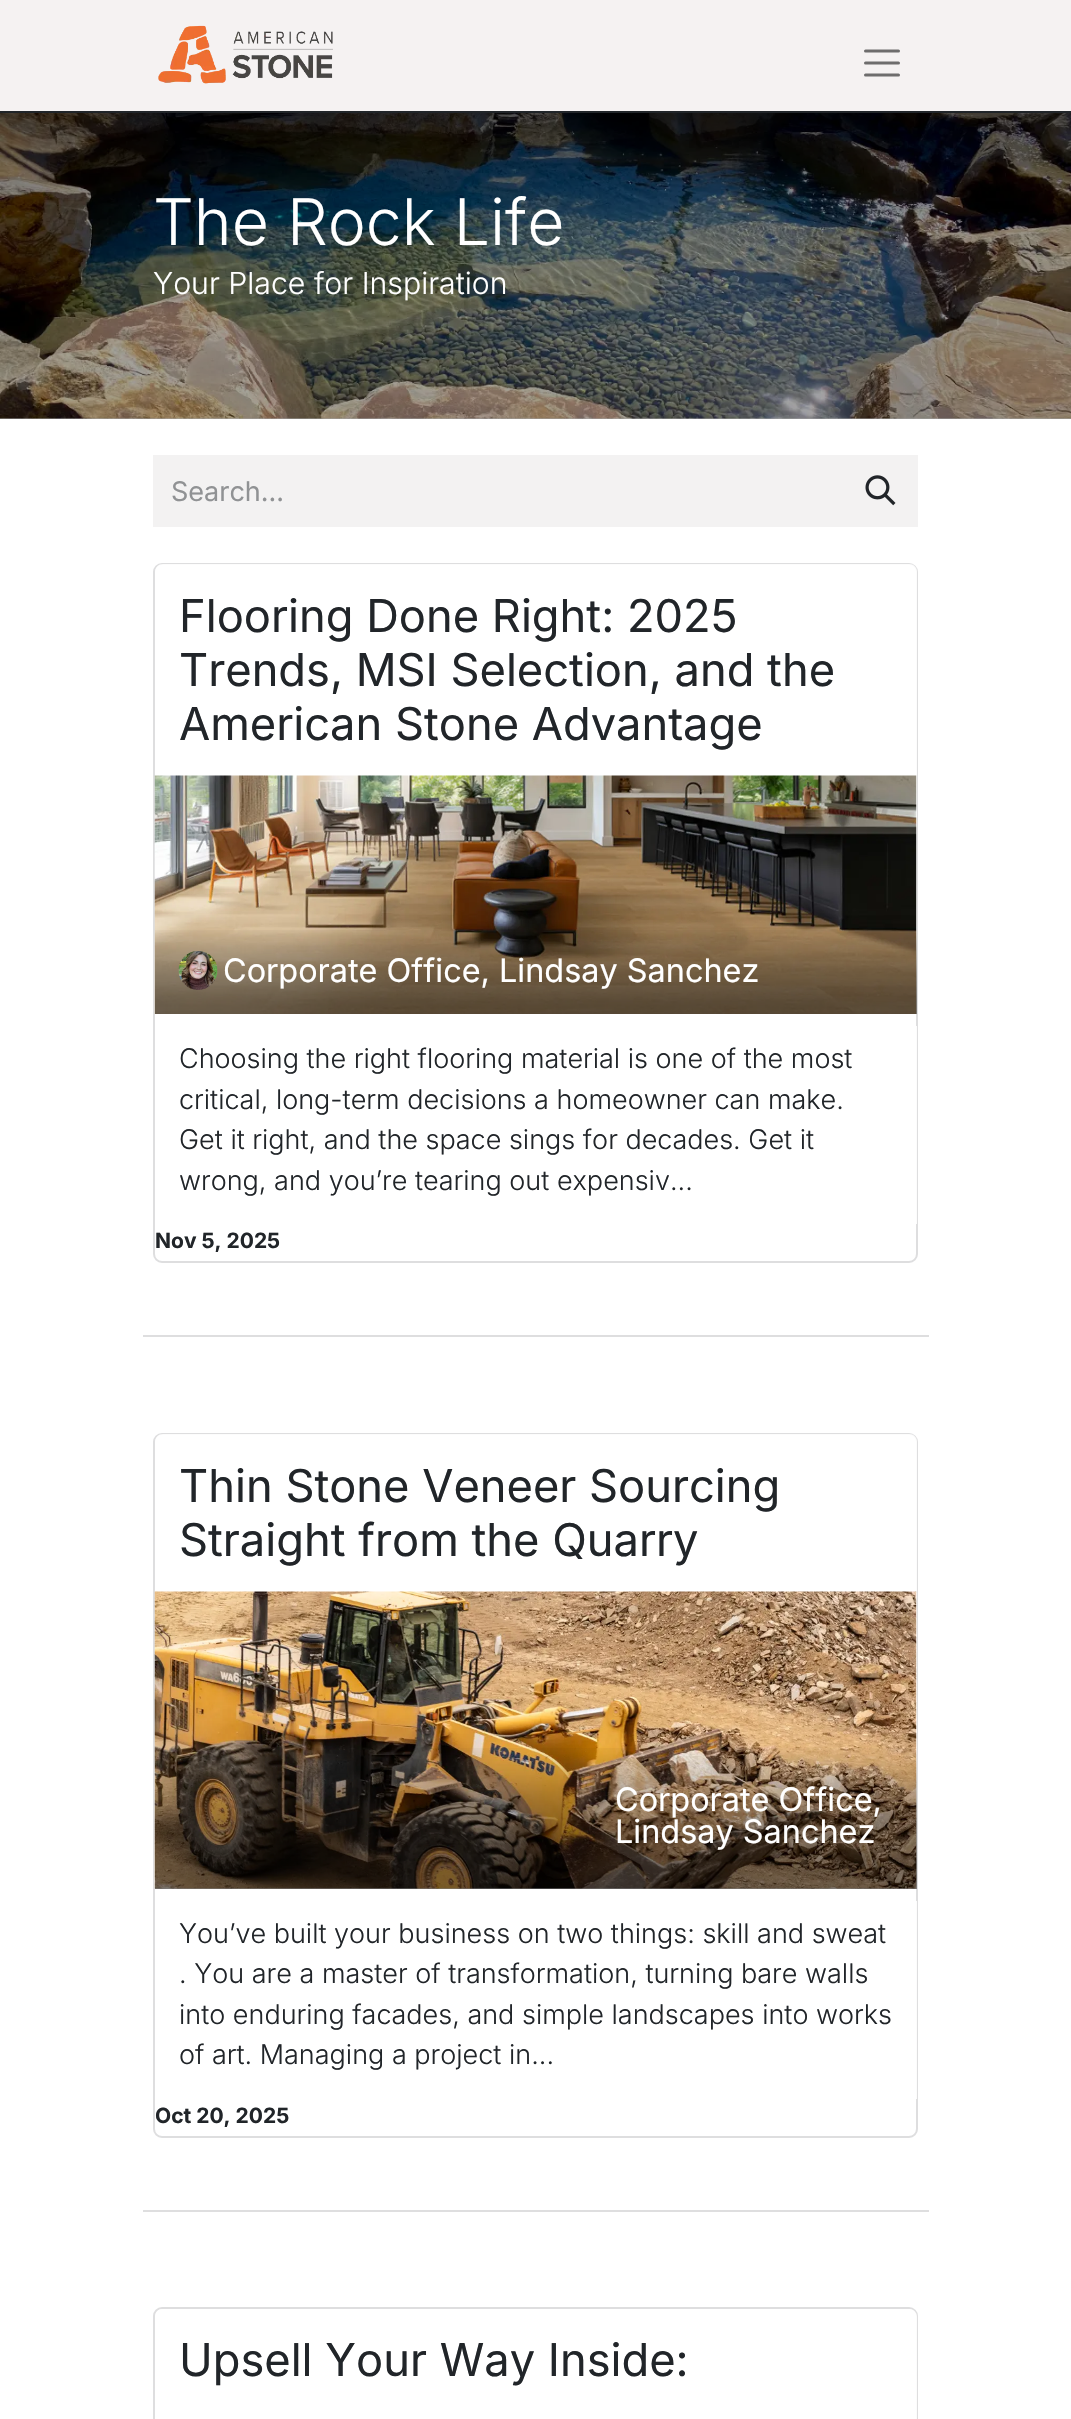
void draw(SkCanvas* canvas) {
  SkPaint paint;
  paint.setAntiAlias(true);
  auto face = [&](const char* family, int weight, float size, bool italic = false) {
    SkFontStyle style(weight, SkFontStyle::kNormal_Width,
      italic ? SkFontStyle::kItalic_Slant : SkFontStyle::kUpright_Slant);
    SkFont result(fontMgr->matchFamilyStyle(family, style), size);
    result.setSubpixel(true);
    return result;
  };
  auto paste = [&](const char* path, float x, float y, float w, float h) {
    auto image = SkImages::DeferredFromEncodedData(SkData::MakeFromFileName(path));
    canvas->drawImageRect(image, SkRect::MakeXYWH(x, y, w, h), SkSamplingOptions());
  };
  auto shape = [&](const char* data, bool evenOdd = false) {
    SkPath result = *SkParsePath::FromSVGString(data);
    if (evenOdd) result.setFillType(SkPathFillType::kEvenOdd);
    return result;
  };
  canvas->clear(0xffffffff);
  {
    const struct { float x, y, w, h; SkColor color; } items[] = {
      {0, 418, 1071, 1, 0xffa3a3a3},
      {0, 0, 1071, 111, 0xfff5f2f2},
      {0, 111, 1071, 2, 0xff212529},
    };
    for (auto [x, y, w, h, color] : items) {
      paint.setColor(color);
      canvas->drawRect(SkRect::MakeXYWH(x, y, w, h), paint);
    }
  }
  paste("img/1.png", 158, 25, 175, 59);
  paint.setStroke(true);
  paint.setStrokeWidth(3);
  paint.setStrokeCap(SkPaint::kRound_Cap);
  paint.setColor(0xff6e6d6d);
  canvas->drawPath(shape("M865.5 51H898.5M865.5 63H898.5M865.5 75H898.5"), paint);
  paste("img/2.png", 0, 113, 1071, 306);
  paint.setStroke(false);
  paint.setColor(0xfff3f2f2);
  canvas->drawRect(SkRect::MakeXYWH(153, 455, 765, 72), paint);
  paste("img/3.png", 865, 475, 31, 31);
  paint.setStroke(true);
  paint.setStrokeWidth(2);
  paint.setStrokeCap(SkPaint::kButt_Cap);
  paint.setColor(0xffdededf);
  canvas->drawRoundRect(SkRect::MakeXYWH(154, 564, 763, 698), 8, 8, paint);
  paint.setStroke(false);
  paint.setColor(0xe6ffffff);
  canvas->drawPath(shape("M163 564H909C913.5 564 917 567.5 917 572V776H155V572C155 567.5 158.5 564 163 564Z"), paint);
  paint.setColor(0xffffffff);
  canvas->drawRect(SkRect::MakeXYWH(916, 776, 1, 238), paint);
  paste("img/4.png", 154, 775, 763, 239);
  {
    const SkColor colors[] = {0x00000000, 0x21000000, 0x3b000000, 0x4f000000, 0x5c000000, 0x66000000, 0x6e000000, 0x75000000, 0x7a000000, 0x7d000000, 0x7d000000, 0x80000000, 0x80000000};
    const float stops[] = {0, 0.19f, 0.34f, 0.47f, 0.56f, 0.65f, 0.73f, 0.8f, 0.86f, 0.91f, 0.95f, 0.98f, 1};
    const SkPoint ends[] = {{536, 927}, {536, 1014}};
    paint.setShader(SkGradientShader::MakeLinear(ends, colors, stops, 13, SkTileMode::kClamp));
    paint.setAlpha(255);
  }
  canvas->drawRect(SkRect::MakeXYWH(155, 930, 762, 84), paint);
  paste("img/5.png", 178, 951, 40, 39);
  paint.setShader(nullptr);
  paint.setColor(0xe6ffffff);
  canvas->drawRect(SkRect::MakeXYWH(916, 1026, 1, 198), paint);
  paint.setColor(0xffdededf);
  canvas->drawRect(SkRect::MakeXYWH(143, 1335, 786, 2), paint);
  paint.setStroke(true);
  canvas->drawRoundRect(SkRect::MakeXYWH(154, 1434, 763, 703), 8, 8, paint);
  paint.setStroke(false);
  paint.setColor(0xe6ffffff);
  canvas->drawPath(shape("M163 1434H909C913.5 1434 917 1437.5 917 1442V1592H155V1442C155 1437.5 158.5 1434 163 1434Z"), paint);
  paint.setColor(0xffffffff);
  canvas->drawRect(SkRect::MakeXYWH(916, 1592, 1, 297), paint);
  paste("img/6.png", 154, 1591, 763, 298);
  {
    const SkColor colors[] = {0x00000000, 0x21000000, 0x3b000000, 0x4f000000, 0x5c000000, 0x66000000, 0x6e000000, 0x75000000, 0x7a000000, 0x7d000000, 0x7d000000, 0x80000000, 0x80000000};
    const float stops[] = {0, 0.19f, 0.34f, 0.47f, 0.56f, 0.65f, 0.73f, 0.8f, 0.86f, 0.91f, 0.95f, 0.98f, 1};
    const SkPoint ends[] = {{536, 1743}, {536, 1889}};
    paint.setShader(SkGradientShader::MakeLinear(ends, colors, stops, 13, SkTileMode::kClamp));
    paint.setAlpha(255);
  }
  canvas->drawRect(SkRect::MakeXYWH(155, 1748, 762, 141), paint);
  paint.setShader(nullptr);
  paint.setColor(0xe6ffffff);
  canvas->drawRect(SkRect::MakeXYWH(916, 1901, 1, 198), paint);
  paint.setColor(0xffdededf);
  canvas->drawRect(SkRect::MakeXYWH(143, 2210, 786, 2), paint);
  paint.setStroke(true);
  canvas->drawRoundRect(SkRect::MakeXYWH(154, 2308, 763, 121), 8, 8, paint);
  paint.setStroke(false);
  paint.setColor(0xe6ffffff);
  canvas->drawPath(shape("M163 2309H909C913.5 2309 917 2312.5 917 2317V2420H155V2317C155 2312.5 158.5 2309 163 2309Z"), paint);
  auto f0 = face("Inter", 300, 64.25f);
  paint.setColor(0xffffffff);
  canvas->drawString("The Rock Life", 153, 245, f0, paint);
  auto f1 = face("Inter", 300, 30.25f);
  canvas->drawString("Your Place for Inspiration", 153, 294, f1, paint);
  auto f2 = face("Inter", 400, 27);
  paint.setColor(0xff909294);
  canvas->drawString("Search...", 171, 501, f2, paint);
  auto f3 = face("Inter", 400, 45.25f);
  paint.setColor(0xff212529);
  {
    const struct { const char* s; float x, y; } items[] = {
      {"Flooring Done Right: 2025", 179, 632},
      {"Trends, MSI Selection, and the", 179, 686},
      {"American Stone Advantage", 179, 740},
    };
    for (auto [s, x, y] : items) {
      canvas->drawString(s, x, y, f3, paint);
    }
  }
  auto f4 = face("Inter", 400, 32.4f);
  paint.setColor(0xffffffff);
  canvas->drawString("Corporate Office, Lindsay Sanchez", 223, 982, f4, paint);
  auto f5 = face("Inter", 300, 27);
  paint.setColor(0xff212529);
  {
    const struct { const char* s; float x, y; } items[] = {
      {"Choosing the right flooring material is one of the most", 179, 1068},
      {"critical, long-term decisions a homeowner can make.", 179, 1109},
      {"Get it right, and the space sings for decades. Get it", 179, 1149},
      {"wrong, and you’re tearing out expensiv...", 179, 1190},
    };
    for (auto [s, x, y] : items) {
      canvas->drawString(s, x, y, f5, paint);
    }
  }
  auto f6 = face("Inter", 700, 21);
  canvas->drawString("Nov 5, 2025", 155, 1248, f6, paint);
  canvas->drawString("Thin Stone Veneer Sourcing", 179, 1502, f3, paint);
  canvas->drawString("Straight from the Quarry", 179, 1556, f3, paint);
  paint.setColor(0xffffffff);
  canvas->drawString("Corporate Office,", 615, 1811, f4, paint);
  canvas->drawString("Lindsay Sanchez", 615, 1843, f4, paint);
  paint.setColor(0xff212529);
  {
    const struct { const char* s; float x, y; } items[] = {
      {"You’ve built your business on two things: skill and sweat", 179, 1943},
      {". You are a master of transformation, turning bare walls", 179, 1983},
      {"into enduring facades, and simple landscapes into works", 179, 2024},
      {"of art. Managing a project in...", 179, 2064},
    };
    for (auto [s, x, y] : items) {
      canvas->drawString(s, x, y, f5, paint);
    }
  }
  canvas->drawString("Oct 20, 2025", 155, 2123, f6, paint);
  canvas->drawString("Upsell Your Way Inside:", 179, 2376, f3, paint);
}
